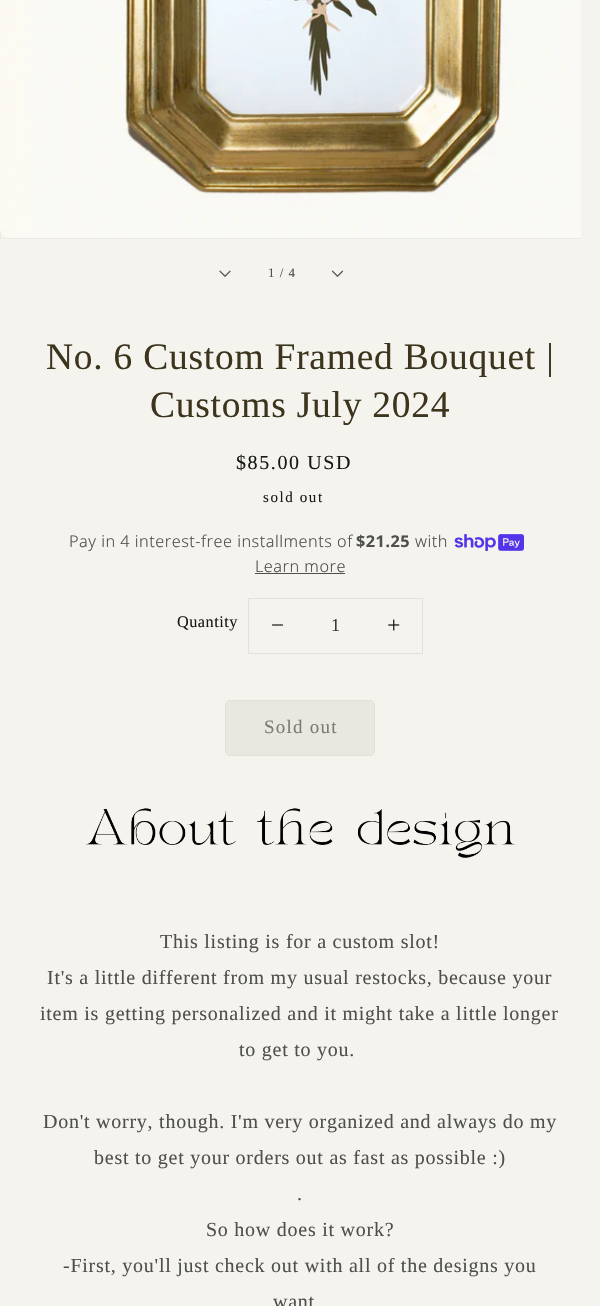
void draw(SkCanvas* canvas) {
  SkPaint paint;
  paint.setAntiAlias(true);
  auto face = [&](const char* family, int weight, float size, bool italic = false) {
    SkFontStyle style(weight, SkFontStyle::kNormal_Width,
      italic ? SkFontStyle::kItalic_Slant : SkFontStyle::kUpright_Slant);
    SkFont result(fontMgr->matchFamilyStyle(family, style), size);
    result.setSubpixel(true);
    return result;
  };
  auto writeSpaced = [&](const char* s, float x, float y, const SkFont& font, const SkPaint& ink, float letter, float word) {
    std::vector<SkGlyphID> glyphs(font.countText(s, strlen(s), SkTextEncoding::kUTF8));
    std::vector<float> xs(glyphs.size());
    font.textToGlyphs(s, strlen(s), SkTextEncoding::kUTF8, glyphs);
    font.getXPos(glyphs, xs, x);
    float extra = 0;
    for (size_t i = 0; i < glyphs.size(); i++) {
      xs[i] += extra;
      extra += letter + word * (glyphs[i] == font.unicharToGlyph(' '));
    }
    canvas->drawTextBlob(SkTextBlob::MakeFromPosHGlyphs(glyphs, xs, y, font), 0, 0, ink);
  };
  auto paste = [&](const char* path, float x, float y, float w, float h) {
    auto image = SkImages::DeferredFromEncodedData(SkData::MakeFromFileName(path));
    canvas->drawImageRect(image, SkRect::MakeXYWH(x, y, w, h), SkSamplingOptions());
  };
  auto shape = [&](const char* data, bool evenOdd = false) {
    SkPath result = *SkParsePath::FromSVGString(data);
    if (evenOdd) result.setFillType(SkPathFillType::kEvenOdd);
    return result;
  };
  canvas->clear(0xfff4f3ed);
  canvas->save();
  canvas->clipRect(SkRect::MakeXYWH(0, 0, 581, 239));
  paint.setStroke(true);
  paint.setStrokeWidth(1);
  paint.setColor(0xffebeae4);
  canvas->drawRect(SkRect::MakeXYWH(0.5f, -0.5f, 599, 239), paint);
  canvas->restore();
  paint.setStroke(false);
  paint.setColor(0xfff8f8f8);
  canvas->drawPath(shape("M10-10H581V238H10C4.5 238 0 233.5 0 228V0C0-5.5 4.5-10 10-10Z"), paint);
  paste("img/1.png", 0, 0, 581, 237);
  paste("img/2.png", 219, 270, 12, 7);
  paste("img/3.png", 331, 270, 13, 7);
  paste("img/4.png", 454, 534, 70, 17);
  paint.setColor(0xff4f4f4d);
  canvas->drawRect(SkRect::MakeXYWH(255, 573, 90, 1), paint);
  paint.setStroke(true);
  paint.setColor(0xffe2e1dc);
  canvas->drawRect(SkRect::MakeXYWH(248.5f, 598.5f, 174, 55), paint);
  paste("img/5.png", 272, 624, 11, 2);
  paste("img/6.png", 388, 619, 12, 12);
  paint.setStroke(false);
  paint.setColor(0xffe8e8e0);
  canvas->drawRoundRect(SkRect::MakeXYWH(225.5f, 700.5f, 149, 55), 4.5f, 4.5f, paint);
  paint.setStroke(true);
  paint.setColor(0xffe0e0d8);
  canvas->drawRoundRect(SkRect::MakeXYWH(225.5f, 700.5f, 149, 55), 4.5f, 4.5f, paint);
  paste("img/7.png", 86, 808, 429, 50);
  auto f0 = face("Liberation Serif", 400, 13);
  paint.setStroke(false);
  paint.setColor(0xff4f4f4d);
  writeSpaced("1 / 4", 268, 277, f0, paint, 1, 0);
  auto f1 = face("Liberation Serif", 400, 37.5f);
  paint.setColor(0xff3c341d);
  writeSpaced("No. 6 Custom Framed Bouquet |", 46, 369, f1, paint, 0.75f, 0);
  writeSpaced("Customs July 2024", 150, 417, f1, paint, 0.75f, 0);
  auto f2 = face("Liberation Serif", 400, 20);
  paint.setColor(0xff181818);
  writeSpaced("$85.00 USD", 236, 469, f2, paint, 1.6f, 0);
  auto f3 = face("Liberation Serif", 400, 15);
  writeSpaced("sold out", 263, 502, f3, paint, 1.6f, 0);
  auto f4 = face("Noto Sans", 300, 16.25f);
  paint.setColor(0xff4f4f4d);
  writeSpaced("Pay in 4 interest-free installments of", 69, 547, f4, paint, 0.5f, 0);
  auto f5 = face("Noto Sans", 700, 16.25f);
  writeSpaced("$21.25", 356, 547, f5, paint, 0.5f, 0);
  writeSpaced("with", 415, 547, f4, paint, 0.5f, 0);
  writeSpaced("Learn more", 255, 572, f4, paint, 0.5f, 0);
  auto f6 = face("Liberation Serif", 400, 16.25f);
  paint.setColor(0xff181818);
  writeSpaced("Quantity", 177, 627, f6, paint, 0.5f, 0);
  auto f7 = face("Liberation Serif", 400, 18);
  paint.setColor(0xff393938);
  canvas->drawString("1", 331, 631, f7, paint);
  auto f8 = face("Liberation Serif", 400, 19);
  paint.setColor(0xff7a7a77);
  writeSpaced("Sold out", 264, 733, f8, paint, 1.25f, 0);
  paint.setColor(0xff4f4f4d);
  {
    const struct { const char* s; float x, y; } items[] = {
      {"This listing is for a custom slot!", 160, 948},
      {"It's a little different from my usual restocks, because your", 47, 984},
      {"item is getting personalized and it might take a little longer", 40, 1020},
      {"to get to you.", 239, 1056},
      {"Don't worry, though. I'm very organized and always do my", 43, 1128},
      {"best to get your orders out as fast as possible :)", 94, 1164},
      {".", 297, 1200},
      {"So how does it work?", 206, 1236},
      {"-First, you'll just check out with all of the designs you", 63, 1272},
      {"want", 273, 1308},
    };
    for (auto [s, x, y] : items) {
      writeSpaced(s, x, y, f2, paint, 0.75f, 0);
    }
  }
}
